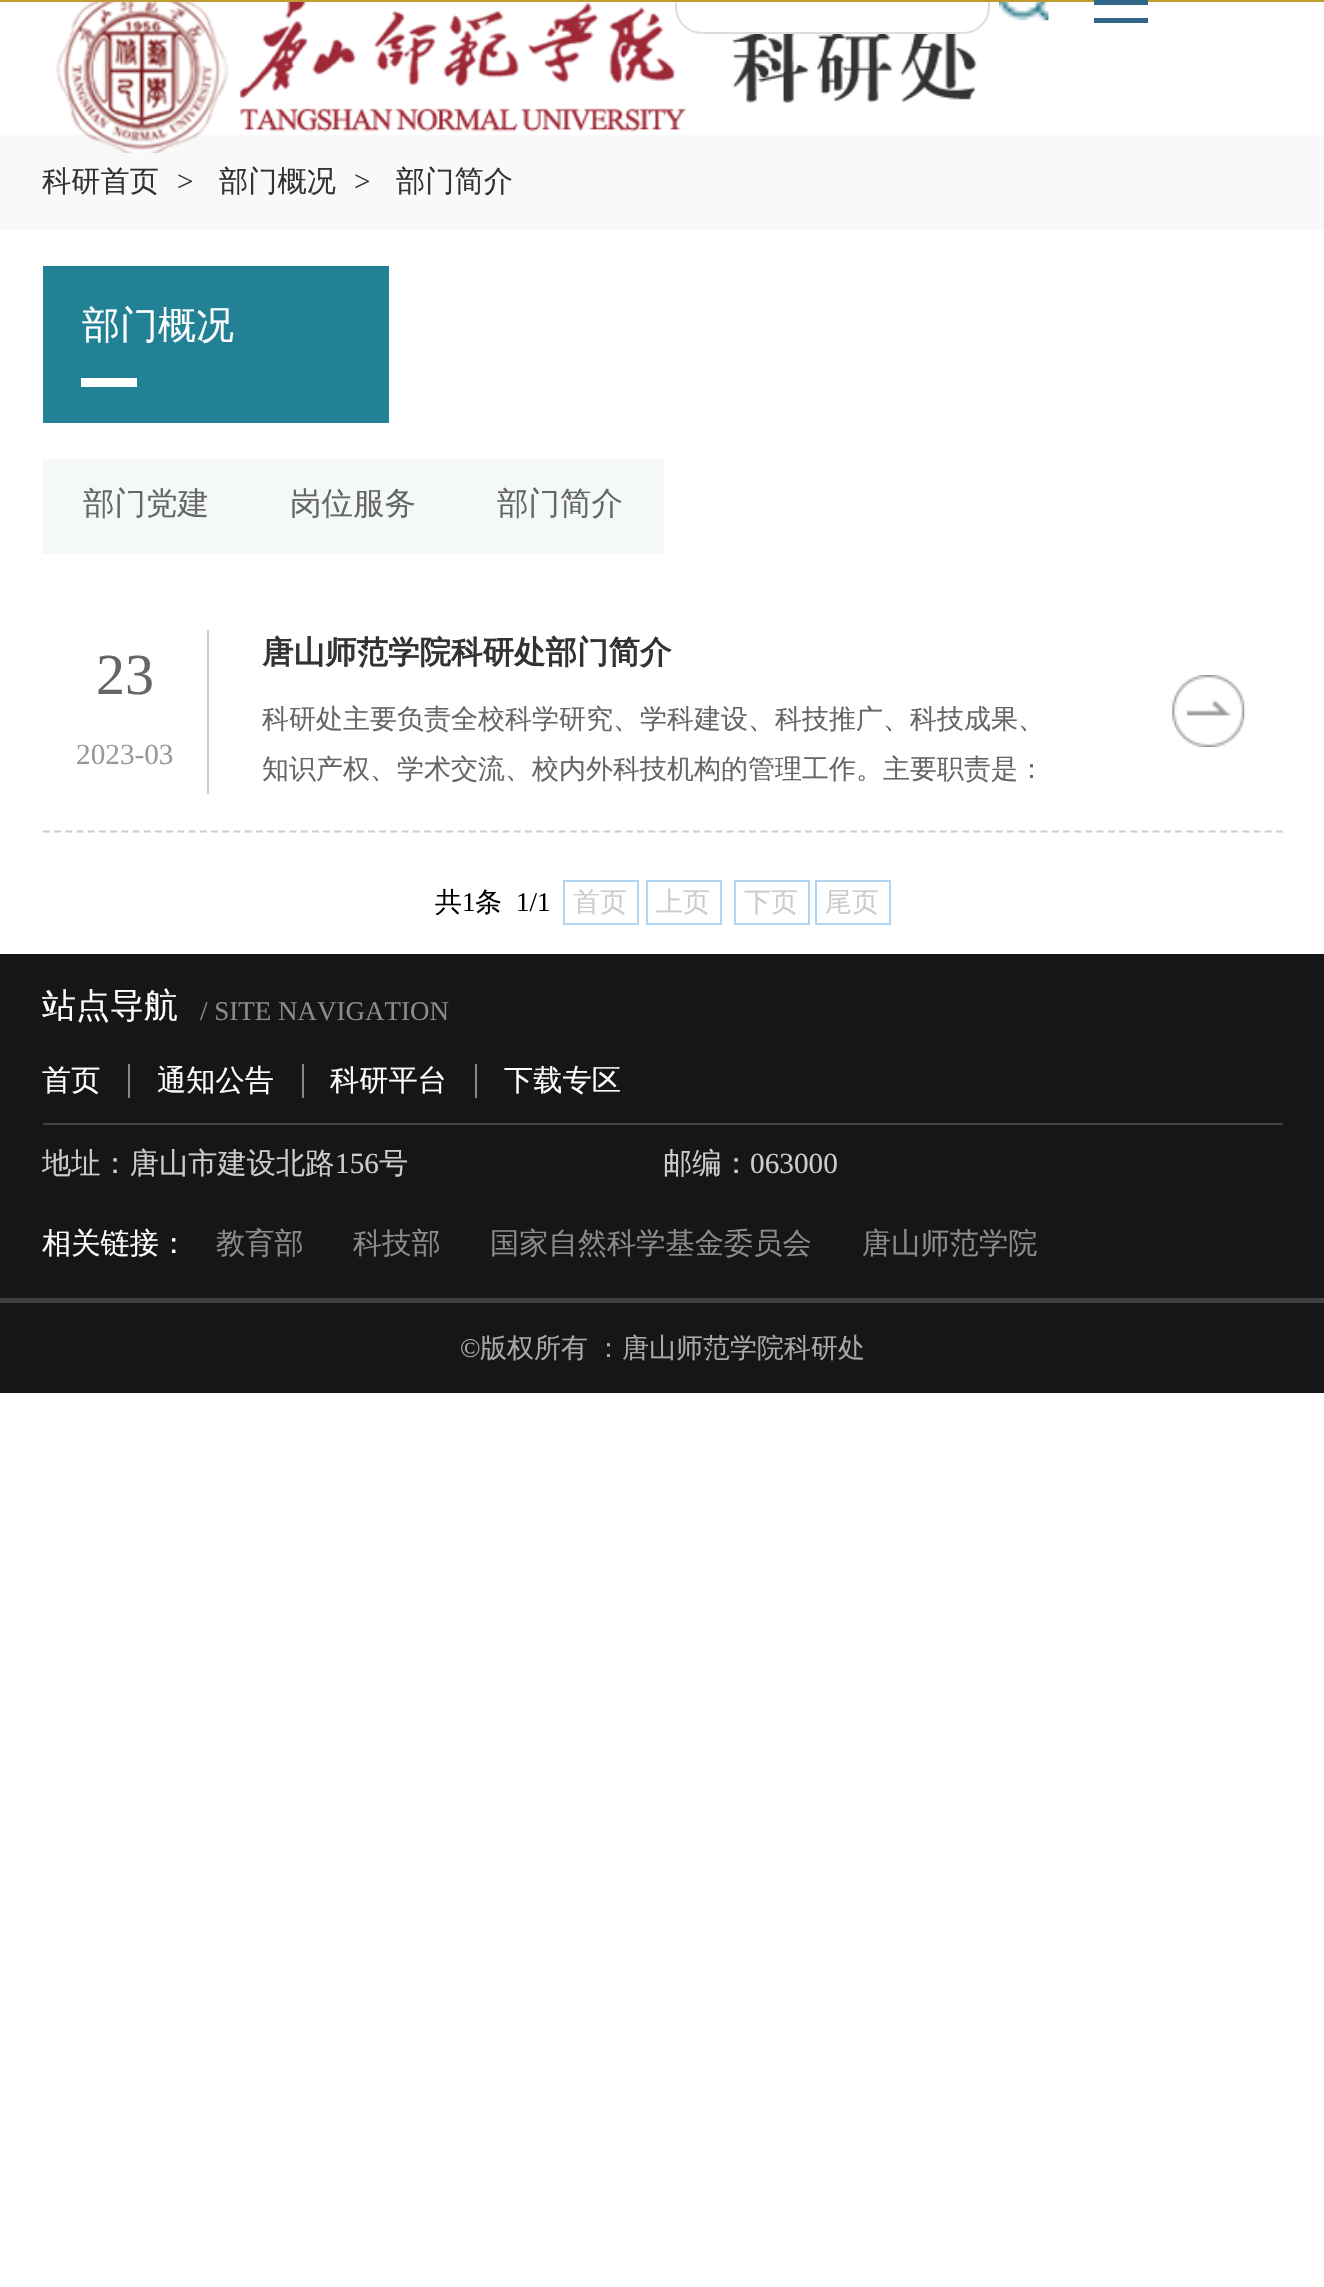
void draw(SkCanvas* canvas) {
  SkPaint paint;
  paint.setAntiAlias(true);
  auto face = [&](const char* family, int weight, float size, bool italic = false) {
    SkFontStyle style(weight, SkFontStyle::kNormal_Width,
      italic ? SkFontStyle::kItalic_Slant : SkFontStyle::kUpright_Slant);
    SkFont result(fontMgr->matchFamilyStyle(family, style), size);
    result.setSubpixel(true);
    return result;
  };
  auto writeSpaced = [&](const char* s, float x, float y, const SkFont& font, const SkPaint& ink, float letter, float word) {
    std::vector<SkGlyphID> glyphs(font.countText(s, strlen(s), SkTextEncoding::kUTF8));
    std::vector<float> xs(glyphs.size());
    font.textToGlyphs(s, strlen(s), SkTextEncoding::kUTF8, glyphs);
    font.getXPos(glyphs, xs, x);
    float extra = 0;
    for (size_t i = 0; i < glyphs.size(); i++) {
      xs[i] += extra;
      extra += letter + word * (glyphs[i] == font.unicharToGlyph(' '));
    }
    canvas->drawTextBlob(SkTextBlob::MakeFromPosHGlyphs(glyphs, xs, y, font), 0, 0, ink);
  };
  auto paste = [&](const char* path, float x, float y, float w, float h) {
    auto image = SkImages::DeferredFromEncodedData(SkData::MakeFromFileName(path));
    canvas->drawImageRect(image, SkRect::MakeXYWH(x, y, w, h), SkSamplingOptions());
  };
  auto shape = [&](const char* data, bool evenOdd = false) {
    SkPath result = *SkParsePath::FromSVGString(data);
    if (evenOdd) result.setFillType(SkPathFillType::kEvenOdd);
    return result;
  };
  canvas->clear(0xffffffff);
  paint.setColor(0xfff9f9f9);
  canvas->drawRect(SkRect::MakeXYWH(0, 135, 1324, 95), paint);
  paste("img/2.png", 56, 2, 921, 151);
  paint.setColor(0xffffffff);
  canvas->drawRoundRect(SkRect::MakeXYWH(676, -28, 313, 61), 26, 26, paint);
  paint.setStroke(true);
  paint.setStrokeWidth(2);
  paint.setColor(0xffdddddd);
  canvas->drawRoundRect(SkRect::MakeXYWH(676, -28, 313, 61), 26, 26, paint);
  paste("img/1.png", 999, 2, 50, 19);
  paint.setStroke(false);
  {
    const struct { float x, y, w, h; SkColor color; } items[] = {
      {0, 0, 1324, 2, 0xffbf9b31},
      {1094, 0, 54, 5, 0xff316889},
      {1094, 18, 54, 5, 0xff316889},
      {43, 266, 346, 157, 0xff228195},
      {81, 378, 56, 9, 0xffffffff},
      {43, 459, 621, 95, 0xfff4f8f9},
    };
    for (auto [x, y, w, h, color] : items) {
      paint.setColor(color);
      canvas->drawRect(SkRect::MakeXYWH(x, y, w, h), paint);
    }
  }
  paint.setStroke(true);
  paint.setStrokeWidth(2.2f);
  paint.setColor(0xffcccccc);
  paint.setPathEffect(SkDashPathEffect::Make({{6.75f, 4.46f}}, 0));
  canvas->drawPath(shape("M43 831.5H1282.5"), paint);
  paint.setPathEffect(nullptr);
  paint.setStroke(false);
  canvas->drawRect(SkRect::MakeXYWH(207, 630, 2, 164), paint);
  paste("img/3.png", 1172, 675, 73, 72);
  paint.setStroke(true);
  paint.setStrokeWidth(2);
  paint.setColor(0xffafd5f5);
  canvas->drawRect(SkRect::MakeXYWH(564, 881, 74, 43), paint);
  canvas->drawRect(SkRect::MakeXYWH(647, 881, 74, 43), paint);
  canvas->drawRect(SkRect::MakeXYWH(735, 881, 74, 43), paint);
  canvas->drawRect(SkRect::MakeXYWH(816, 881, 74, 43), paint);
  paint.setStroke(false);
  {
    const struct { float x, y, w, h; SkColor color; } items[] = {
      {0, 954, 1324, 439, 0xff151717},
      {43, 1123, 1240, 2, 0xff424343},
      {128, 1064, 2, 34, 0xff858686},
      {302, 1064, 2, 34, 0xff858686},
      {475, 1064, 2, 34, 0xff858686},
      {0, 1298, 1324, 5, 0xff3f4141},
    };
    for (auto [x, y, w, h, color] : items) {
      paint.setColor(color);
      canvas->drawRect(SkRect::MakeXYWH(x, y, w, h), paint);
    }
  }
  auto f0 = face("WenQuanYi Zen Hei", 500, 29.25f);
  paint.setColor(0xff333333);
  canvas->drawString("科研首页", 42, 191, f0, paint);
  auto f1 = face("Liberation Serif", 400, 29.25f);
  canvas->drawString(">", 177, 191, f1, paint);
  canvas->drawString("部门概况", 219, 191, f0, paint);
  canvas->drawString(">", 354, 191, f1, paint);
  canvas->drawString("部门简介", 396, 191, f0, paint);
  auto f2 = face("WenQuanYi Zen Hei", 500, 38);
  paint.setColor(0xfffefefe);
  canvas->drawString("部门概况", 82, 338, f2, paint);
  auto f3 = face("WenQuanYi Zen Hei", 500, 31.5f);
  paint.setColor(0xff666666);
  {
    const struct { const char* s; float x, y; } items[] = {
      {"部门党建", 83, 514},
      {"岗位服务", 290, 514},
      {"部门简介", 497, 514},
    };
    for (auto [s, x, y] : items) {
      canvas->drawString(s, x, y, f3, paint);
    }
  }
  auto f4 = face("Liberation Serif", 400, 58);
  canvas->drawString("23", 96, 694, f4, paint);
  paint.setColor(0xff999999);
  canvas->drawString("2023-03", 76, 764, f1, paint);
  auto f5 = face("WenQuanYi Zen Hei", 700, 31.5f);
  paint.setColor(0xff333333);
  canvas->drawString("唐山师范学院科研处部门简介", 262, 663, f5, paint);
  auto f6 = face("WenQuanYi Zen Hei", 500, 27);
  paint.setColor(0xff666666);
  canvas->drawString("科研处主要负责全校科学研究、学科建设、科技推广、科技成果、", 262, 728, f6, paint);
  canvas->drawString("知识产权、学术交流、校内外科技机构的管理工作。主要职责是：", 262, 778, f6, paint);
  paint.setColor(0xff000000);
  canvas->drawString("共", 435, 911, f6, paint);
  auto f7 = face("Liberation Serif", 400, 27);
  canvas->drawString("1", 462, 911, f7, paint);
  canvas->drawString("条", 475, 911, f6, paint);
  canvas->drawString("1/1", 516, 911, f7, paint);
  paint.setColor(0xffcccccc);
  {
    const struct { const char* s; float x, y; } items[] = {
      {"首页", 573, 911},
      {"上页", 656, 911},
      {"下页", 744, 911},
      {"尾页", 825, 911},
    };
    for (auto [s, x, y] : items) {
      canvas->drawString(s, x, y, f6, paint);
    }
  }
  auto f8 = face("WenQuanYi Zen Hei", 500, 34);
  paint.setColor(0xfffefefe);
  canvas->drawString("站点导航", 42, 1017, f8, paint);
  paint.setColor(0xff8a8b8b);
  canvas->drawString("/ SITE NAVIGATION", 200, 1020, f7, paint);
  paint.setColor(0xfffefefe);
  {
    const struct { const char* s; float x, y; } items[] = {
      {"首页", 42, 1090},
      {"通知公告", 157, 1090},
      {"科研平台", 330, 1090},
      {"下载专区", 504, 1090},
    };
    for (auto [s, x, y] : items) {
      canvas->drawString(s, x, y, f0, paint);
    }
  }
  paint.setColor(0xffcccccc);
  canvas->drawString("地址：唐山市建设北路", 42, 1173, f0, paint);
  canvas->drawString("156", 335, 1173, f1, paint);
  canvas->drawString("号", 379, 1173, f0, paint);
  canvas->drawString("邮编：", 663, 1173, f0, paint);
  canvas->drawString("063000", 750, 1173, f1, paint);
  paint.setColor(0xfffefefe);
  canvas->drawString("相关链接：", 42, 1253, f0, paint);
  paint.setColor(0xff8a8b8b);
  {
    const struct { const char* s; float x, y; } items[] = {
      {"教育部", 216, 1253},
      {"科技部", 353, 1253},
      {"国家自然科学基金委员会", 490, 1253},
      {"唐山师范学院", 862, 1253},
    };
    for (auto [s, x, y] : items) {
      canvas->drawString(s, x, y, f0, paint);
    }
  }
  paint.setColor(0xffa8a9a9);
  canvas->drawString("©", 460, 1357, f7, paint);
  writeSpaced("版权所有 ：唐山师范学院科研处", 480, 1357, f6, paint, 0, -1);
}
